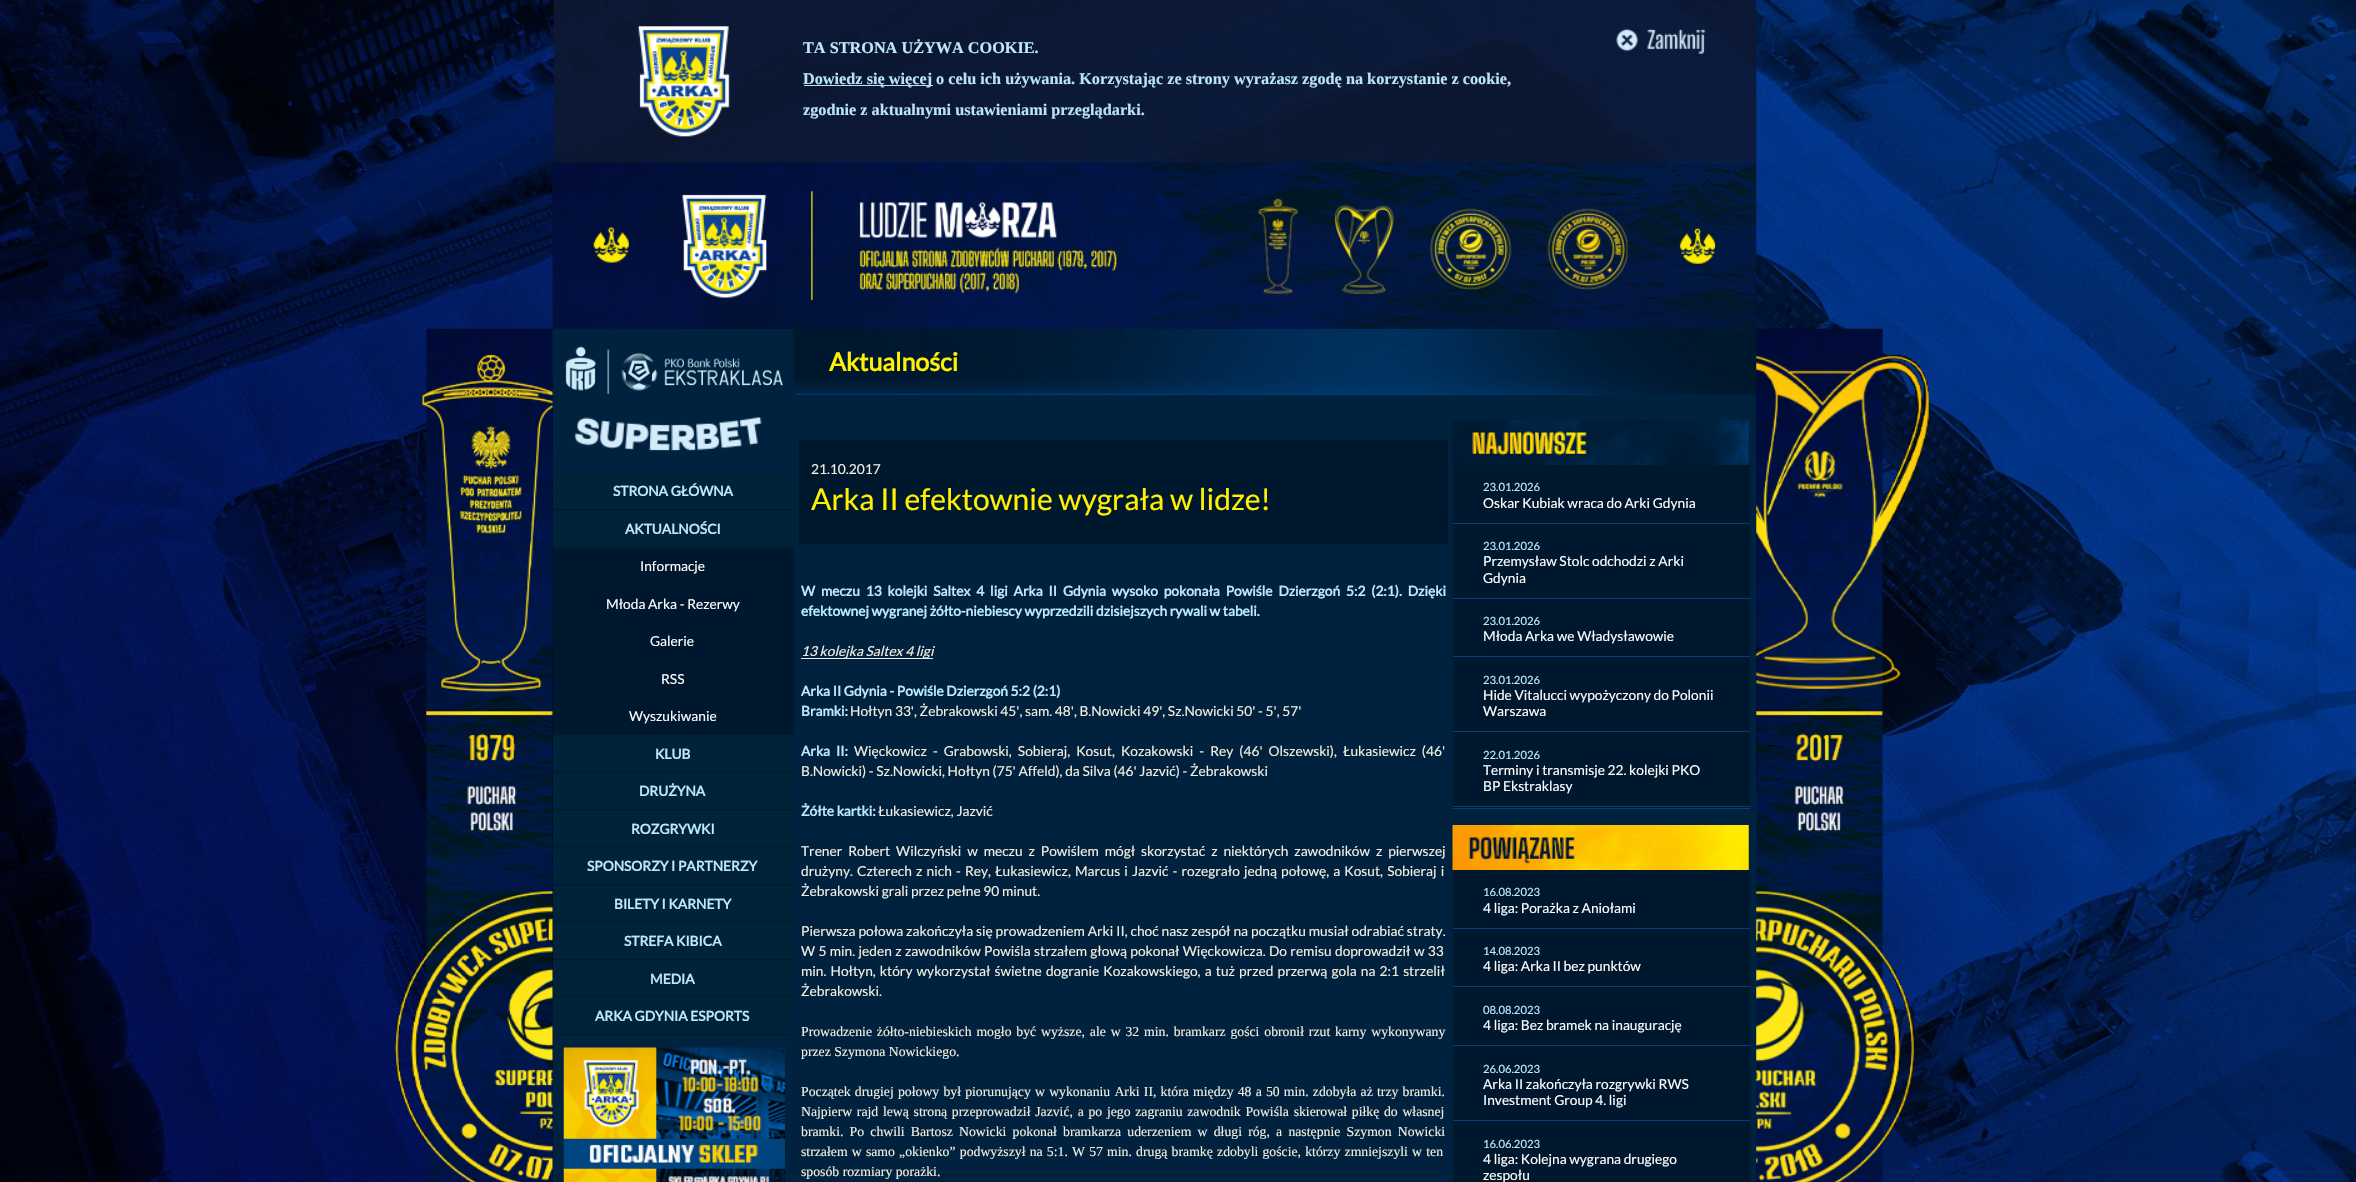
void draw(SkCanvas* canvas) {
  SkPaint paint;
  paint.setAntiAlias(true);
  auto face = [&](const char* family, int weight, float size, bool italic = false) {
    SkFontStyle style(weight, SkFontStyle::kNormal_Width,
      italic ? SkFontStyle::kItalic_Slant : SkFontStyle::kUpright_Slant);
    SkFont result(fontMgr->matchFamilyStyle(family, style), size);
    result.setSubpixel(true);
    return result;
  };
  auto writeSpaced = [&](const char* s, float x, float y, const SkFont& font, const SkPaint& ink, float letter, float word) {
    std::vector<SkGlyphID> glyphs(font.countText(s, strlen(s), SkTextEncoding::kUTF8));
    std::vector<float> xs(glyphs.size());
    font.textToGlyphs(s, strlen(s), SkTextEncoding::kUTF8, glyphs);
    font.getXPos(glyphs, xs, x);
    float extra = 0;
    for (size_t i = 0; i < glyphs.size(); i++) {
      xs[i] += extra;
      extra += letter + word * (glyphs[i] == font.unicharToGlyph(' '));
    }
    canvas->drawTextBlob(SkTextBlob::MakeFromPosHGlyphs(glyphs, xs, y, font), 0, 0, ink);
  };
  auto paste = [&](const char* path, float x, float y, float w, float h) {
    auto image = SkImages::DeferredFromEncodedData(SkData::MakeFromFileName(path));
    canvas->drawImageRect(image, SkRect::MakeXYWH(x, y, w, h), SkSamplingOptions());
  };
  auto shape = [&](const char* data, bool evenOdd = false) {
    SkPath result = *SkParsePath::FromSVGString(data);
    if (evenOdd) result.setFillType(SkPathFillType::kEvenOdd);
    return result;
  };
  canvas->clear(0xffffffff);
  paste("img/1.png", 0, 0, 2356, 1182);
  paste("img/2.png", 553, 0, 1204, 163);
  paint.setColor(0xffb9e4f3);
  canvas->drawRect(SkRect::MakeXYWH(804, 85, 129, 1), paint);
  paste("img/3.png", 1616, 28, 90, 26);
  paste("img/4.png", 552, 162, 1205, 167);
  paint.setColor(0xff00223e);
  canvas->drawRect(SkRect::MakeXYWH(553, 329, 1203, 853), paint);
  paste("img/5.png", 422, 328, 131, 526);
  paste("img/6.png", 394, 853, 159, 329);
  paste("img/7.png", 565, 346, 218, 49);
  paste("img/8.png", 574, 417, 188, 34);
  paint.setColor(0xff00233a);
  canvas->drawPath(shape("M558 473H789C792 473 794 475 794 478V510H553V478C553 475 555 473 558 473Z"), paint);
  canvas->save();
  canvas->clipPath(shape("M558 473H789C792 473 794 475 794 478V1030C794 1033 792 1035 789 1035H558C555 1035 553 1033 553 1030V478C553 475 555 473 558 473Z"), true);
  paint.setColor(0xff001f34);
  canvas->drawRect(SkRect::MakeXYWH(553, 473, 241, 1), paint);
  canvas->restore();
  {
    const struct { float x, y, w, h; SkColor color; } items[] = {
      {553, 509, 241, 1, 0xff00182e},
      {553, 511, 241, 37, 0xff00233a},
      {553, 510, 241, 1, 0xff002034},
      {553, 546, 241, 1, 0xff00182e},
      {553, 548, 241, 36, 0xff00182e},
      {553, 584, 241, 1, 0xff00172c},
      {553, 585, 241, 74, 0xff00182e},
      {553, 659, 241, 1, 0xff00172c},
      {553, 660, 241, 74, 0xff00182e},
      {553, 734, 241, 1, 0xff00172c},
      {553, 736, 241, 37, 0xff00233a},
      {553, 735, 241, 1, 0xff002034},
      {553, 771, 241, 1, 0xff00182e},
      {553, 774, 241, 35, 0xff00233a},
      {553, 773, 241, 1, 0xff002034},
      {553, 809, 241, 1, 0xff00182e},
      {553, 811, 241, 37, 0xff00233a},
      {553, 810, 241, 1, 0xff002034},
      {553, 846, 241, 1, 0xff00182e},
      {553, 849, 241, 35, 0xff00233a},
      {553, 848, 241, 1, 0xff002034},
      {553, 884, 241, 1, 0xff00182e},
      {553, 886, 241, 37, 0xff00233a},
      {553, 885, 241, 1, 0xff002034},
      {553, 921, 241, 1, 0xff00182e},
      {553, 924, 241, 35, 0xff00233a},
      {553, 923, 241, 1, 0xff002034},
      {553, 959, 241, 1, 0xff00182e},
      {553, 961, 241, 37, 0xff00233a},
      {553, 960, 241, 1, 0xff002034},
      {553, 996, 241, 1, 0xff00182e},
    };
    for (auto [x, y, w, h, color] : items) {
      paint.setColor(color);
      canvas->drawRect(SkRect::MakeXYWH(x, y, w, h), paint);
    }
  }
  paint.setColor(0xff00233a);
  canvas->drawPath(shape("M553 998H794V1030C794 1033 792 1035 789 1035H558C555 1035 553 1033 553 1030Z"), paint);
  paint.setColor(0xff002034);
  canvas->drawRect(SkRect::MakeXYWH(553, 998, 241, 1), paint);
  canvas->save();
  canvas->clipPath(shape("M558 473H789C792 473 794 475 794 478V1030C794 1033 792 1035 789 1035H558C555 1035 553 1033 553 1030V478C553 475 555 473 558 473Z"), true);
  paint.setColor(0xff00182e);
  canvas->drawRect(SkRect::MakeXYWH(553, 1034, 241, 1), paint);
  canvas->restore();
  paste("img/9.png", 563, 1047, 222, 135);
  paste("img/10.png", 793, 328, 966, 67);
  canvas->drawRect(SkRect::MakeXYWH(799, 440, 649, 104), paint);
  paint.setColor(0xfff3eee0);
  canvas->drawRect(SkRect::MakeXYWH(801, 658, 132, 1), paint);
  paste("img/11.png", 1452, 420, 297, 45);
  {
    const struct { float x, y, w, h; SkColor color; } items[] = {
      {1453, 465, 297, 343, 0xff00182e},
      {1453, 808, 297, 1, 0xff0a3f72},
      {1453, 523, 297, 1, 0xff0a3f72},
      {1453, 598, 297, 1, 0xff0a3f72},
      {1453, 656, 297, 1, 0xff0a3f72},
      {1453, 731, 297, 1, 0xff0a3f72},
      {1453, 806, 297, 1, 0xff0a3f72},
    };
    for (auto [x, y, w, h, color] : items) {
      paint.setColor(color);
      canvas->drawRect(SkRect::MakeXYWH(x, y, w, h), paint);
    }
  }
  paste("img/12.png", 1452, 825, 297, 45);
  {
    const struct { float x, y, w, h; SkColor color; } items[] = {
      {1453, 870, 297, 312, 0xff00182e},
      {1453, 928, 297, 1, 0xff0a3f72},
      {1453, 986, 297, 1, 0xff0a3f72},
      {1453, 1045, 297, 1, 0xff0a3f72},
      {1453, 1120, 297, 1, 0xff0a3f72},
    };
    for (auto [x, y, w, h, color] : items) {
      paint.setColor(color);
      canvas->drawRect(SkRect::MakeXYWH(x, y, w, h), paint);
    }
  }
  paste("img/13.png", 1756, 328, 173, 526);
  paste("img/14.png", 1756, 853, 158, 329);
  auto f0 = face("Liberation Serif", 700, 16.25f);
  paint.setColor(0xffbee9f9);
  canvas->drawString("TA STRONA UŻYWA COOKIE.", 803, 53, f0, paint);
  paint.setColor(0xffb9e4f3);
  canvas->drawString("Dowiedz się więcej o celu ich używania. Korzystając ze strony wyrażasz zgodę na korzystanie z cookie,", 803, 84, f0, paint);
  canvas->drawString("zgodnie z aktualnymi ustawieniami przeglądarki.", 803, 115, f0, paint);
  auto f1 = face("Lato", 700, 13.75f);
  paint.setColor(0xffbde9ff);
  canvas->drawString("STRONA GŁÓWNA", 613, 496, f1, paint);
  canvas->drawString("AKTUALNOŚCI", 625, 534, f1, paint);
  auto f2 = face("Lato", 400, 13.75f);
  paint.setColor(0xffffffff);
  {
    const struct { const char* s; float x, y; } items[] = {
      {"Informacje", 640, 571},
      {"Młoda Arka - Rezerwy", 606, 609},
      {"Galerie", 650, 646},
      {"RSS", 661, 684},
      {"Wyszukiwanie", 629, 721},
    };
    for (auto [s, x, y] : items) {
      canvas->drawString(s, x, y, f2, paint);
    }
  }
  paint.setColor(0xffbde9ff);
  {
    const struct { const char* s; float x, y; } items[] = {
      {"KLUB", 655, 759},
      {"DRUŻYNA", 639, 796},
      {"ROZGRYWKI", 631, 834},
      {"SPONSORZY I PARTNERZY", 587, 871},
      {"BILETY I KARNETY", 614, 909},
      {"STREFA KIBICA", 624, 946},
      {"MEDIA", 650, 984},
      {"ARKA GDYNIA ESPORTS", 595, 1021},
    };
    for (auto [s, x, y] : items) {
      canvas->drawString(s, x, y, f1, paint);
    }
  }
  auto f3 = face("Lato", 700, 25);
  paint.setColor(0xfffff100);
  canvas->drawString("Aktualności", 829, 371, f3, paint);
  paint.setColor(0xfff3eee0);
  canvas->drawString("21.10.2017", 811, 474, f2, paint);
  auto f4 = face("Lato", 400, 30);
  paint.setColor(0xfffff100);
  canvas->drawString("Arka II efektownie wygrała w lidze!", 811, 510, f4, paint);
  paint.setColor(0xffbde9ff);
  writeSpaced("W meczu 13 kolejki Saltex 4 ligi Arka II Gdynia wysoko pokonała Powiśle Dzierzgoń 5:2 (2:1). Dzięki", 801, 596, f1, paint, 0, 3.25f);
  canvas->drawString("efektownej wygranej żółto-niebiescy wyprzedzili dzisiejszych rywali w tabeli.", 801, 616, f1, paint);
  auto f5 = face("Lato", 400, 13.75f, true);
  paint.setColor(0xfff3eee0);
  canvas->drawString("13 kolejka Saltex 4 ligi", 801, 656, f5, paint);
  paint.setColor(0xffbde9ff);
  canvas->drawString("Arka II Gdynia - Powiśle Dzierzgoń 5:2 (2:1)", 801, 696, f1, paint);
  canvas->drawString("Bramki:", 801, 716, f1, paint);
  paint.setColor(0xfff3eee0);
  canvas->drawString("Hołtyn 33', Żebrakowski 45', sam. 48', B.Nowicki 49', Sz.Nowicki 50' - 5', 57'", 850, 716, f2, paint);
  paint.setColor(0xffbde9ff);
  writeSpaced("Arka II:", 801, 756, f1, paint, 0, 3.4f);
  paint.setColor(0xfff3eee0);
  writeSpaced("Więckowicz - Grabowski, Sobieraj, Kosut, Kozakowski - Rey (46' Olszewski), Łukasiewicz (46'", 854, 756, f2, paint, 0, 3.4f);
  canvas->drawString("B.Nowicki) - Sz.Nowicki, Hołtyn (75' Affeld), da Silva (46' Jazvić) - Żebrakowski", 801, 776, f2, paint);
  paint.setColor(0xffbde9ff);
  canvas->drawString("Żółte kartki:", 801, 816, f1, paint);
  paint.setColor(0xfff3eee0);
  canvas->drawString("Łukasiewicz, Jazvić", 878, 816, f2, paint);
  writeSpaced("Trener Robert Wilczyński w meczu z Powiślem mógł skorzystać z niektórych zawodników z pierwszej", 801, 856, f2, paint, 0, 3.25f);
  writeSpaced("drużyny. Czterech z nich - Rey, Łukasiewicz, Marcus i Jazvić - rozegrało jedną połowę, a Kosut, Sobieraj i", 801, 876, f2, paint, 0, 1.5f);
  canvas->drawString("Żebrakowski grali przez pełne 90 minut.", 801, 896, f2, paint);
  writeSpaced("Pierwsza połowa zakończyła się prowadzeniem Arki II, choć nasz zespół na początku musiał odrabiać straty.", 801, 936, f2, paint, 0, 0.25f);
  writeSpaced("W 5 min. jeden z zawodników Powiśla strzałem głową pokonał Więckowicza. Do remisu doprowadził w 33", 801, 956, f2, paint, 0, 0.75f);
  writeSpaced("min. Hołtyn, który wykorzystał świetne dogranie Kozakowskiego, a tuż przed przerwą gola na 2:1 strzelił", 801, 976, f2, paint, 0, 1.5f);
  canvas->drawString("Żebrakowski.", 801, 996, f2, paint);
  auto f6 = face("Liberation Serif", 400, 13.75f);
  writeSpaced("Prowadzenie żółto-niebieskich mogło być wyższe, ale w 32 min. bramkarz gości obronił rzut karny wykonywany", 801, 1036, f6, paint, 0, 1.4f);
  canvas->drawString("przez Szymona Nowickiego.", 801, 1056, f6, paint);
  writeSpaced("Początek drugiej połowy był piorunujący w wykonaniu Arki II, która między 48 a 50 min. zdobyła aż trzy bramki.", 801, 1096, f6, paint, 0, 0.75f);
  writeSpaced("Najpierw rajd lewą stroną przeprowadził Jazvić, a po jego zagraniu zawodnik Powiśla skierował piłkę do własnej", 801, 1116, f6, paint, 0, 1.25f);
  writeSpaced("bramki. Po chwili Bartosz Nowicki pokonał bramkarza uderzeniem w długi róg, a następnie Szymon Nowicki", 801, 1136, f6, paint, 0, 2.75f);
  writeSpaced("strzałem w samo „okienko” podwyższył na 5:1.", 801, 1156, f6, paint, 0, 0.75f);
  writeSpaced("W 57 min. drugą bramkę zdobyli goście, którzy zmniejszyli w ten", 1072, 1156, f6, paint, 0, 0.75f);
  canvas->drawString("sposób rozmiary porażki.", 801, 1176, f6, paint);
  auto f7 = face("Lato", 400, 11.25f);
  paint.setColor(0xffbde9ff);
  canvas->drawString("23.01.2026", 1483, 491, f7, paint);
  paint.setColor(0xffffffff);
  canvas->drawString("Oskar Kubiak wraca do Arki Gdynia", 1483, 508, f2, paint);
  paint.setColor(0xffbde9ff);
  canvas->drawString("23.01.2026", 1483, 550, f7, paint);
  paint.setColor(0xffffffff);
  canvas->drawString("Przemysław Stolc odchodzi z Arki", 1483, 566, f2, paint);
  canvas->drawString("Gdynia", 1483, 583, f2, paint);
  paint.setColor(0xffbde9ff);
  canvas->drawString("23.01.2026", 1483, 625, f7, paint);
  paint.setColor(0xffffffff);
  canvas->drawString("Młoda Arka we Władysławowie", 1483, 641, f2, paint);
  paint.setColor(0xffbde9ff);
  canvas->drawString("23.01.2026", 1483, 684, f7, paint);
  paint.setColor(0xffffffff);
  canvas->drawString("Hide Vitalucci wypożyczony do Polonii", 1483, 700, f2, paint);
  canvas->drawString("Warszawa", 1483, 716, f2, paint);
  paint.setColor(0xffbde9ff);
  canvas->drawString("22.01.2026", 1483, 759, f7, paint);
  paint.setColor(0xffffffff);
  canvas->drawString("Terminy i transmisje 22. kolejki PKO", 1483, 775, f2, paint);
  canvas->drawString("BP Ekstraklasy", 1483, 791, f2, paint);
  paint.setColor(0xffbde9ff);
  canvas->drawString("16.08.2023", 1483, 896, f7, paint);
  paint.setColor(0xffffffff);
  canvas->drawString("4 liga: Porażka z Aniołami", 1483, 913, f2, paint);
  paint.setColor(0xffbde9ff);
  canvas->drawString("14.08.2023", 1483, 955, f7, paint);
  paint.setColor(0xffffffff);
  canvas->drawString("4 liga: Arka II bez punktów", 1483, 971, f2, paint);
  paint.setColor(0xffbde9ff);
  canvas->drawString("08.08.2023", 1483, 1014, f7, paint);
  paint.setColor(0xffffffff);
  canvas->drawString("4 liga: Bez bramek na inaugurację", 1483, 1030, f2, paint);
  paint.setColor(0xffbde9ff);
  canvas->drawString("26.06.2023", 1483, 1073, f7, paint);
  paint.setColor(0xffffffff);
  canvas->drawString("Arka II zakończyła rozgrywki RWS", 1483, 1089, f2, paint);
  canvas->drawString("Investment Group 4. ligi", 1483, 1105, f2, paint);
  paint.setColor(0xffbde9ff);
  canvas->drawString("16.06.2023", 1483, 1148, f7, paint);
  paint.setColor(0xffffffff);
  canvas->drawString("4 liga: Kolejna wygrana drugiego", 1483, 1164, f2, paint);
  canvas->drawString("zespołu", 1483, 1180, f2, paint);
}
